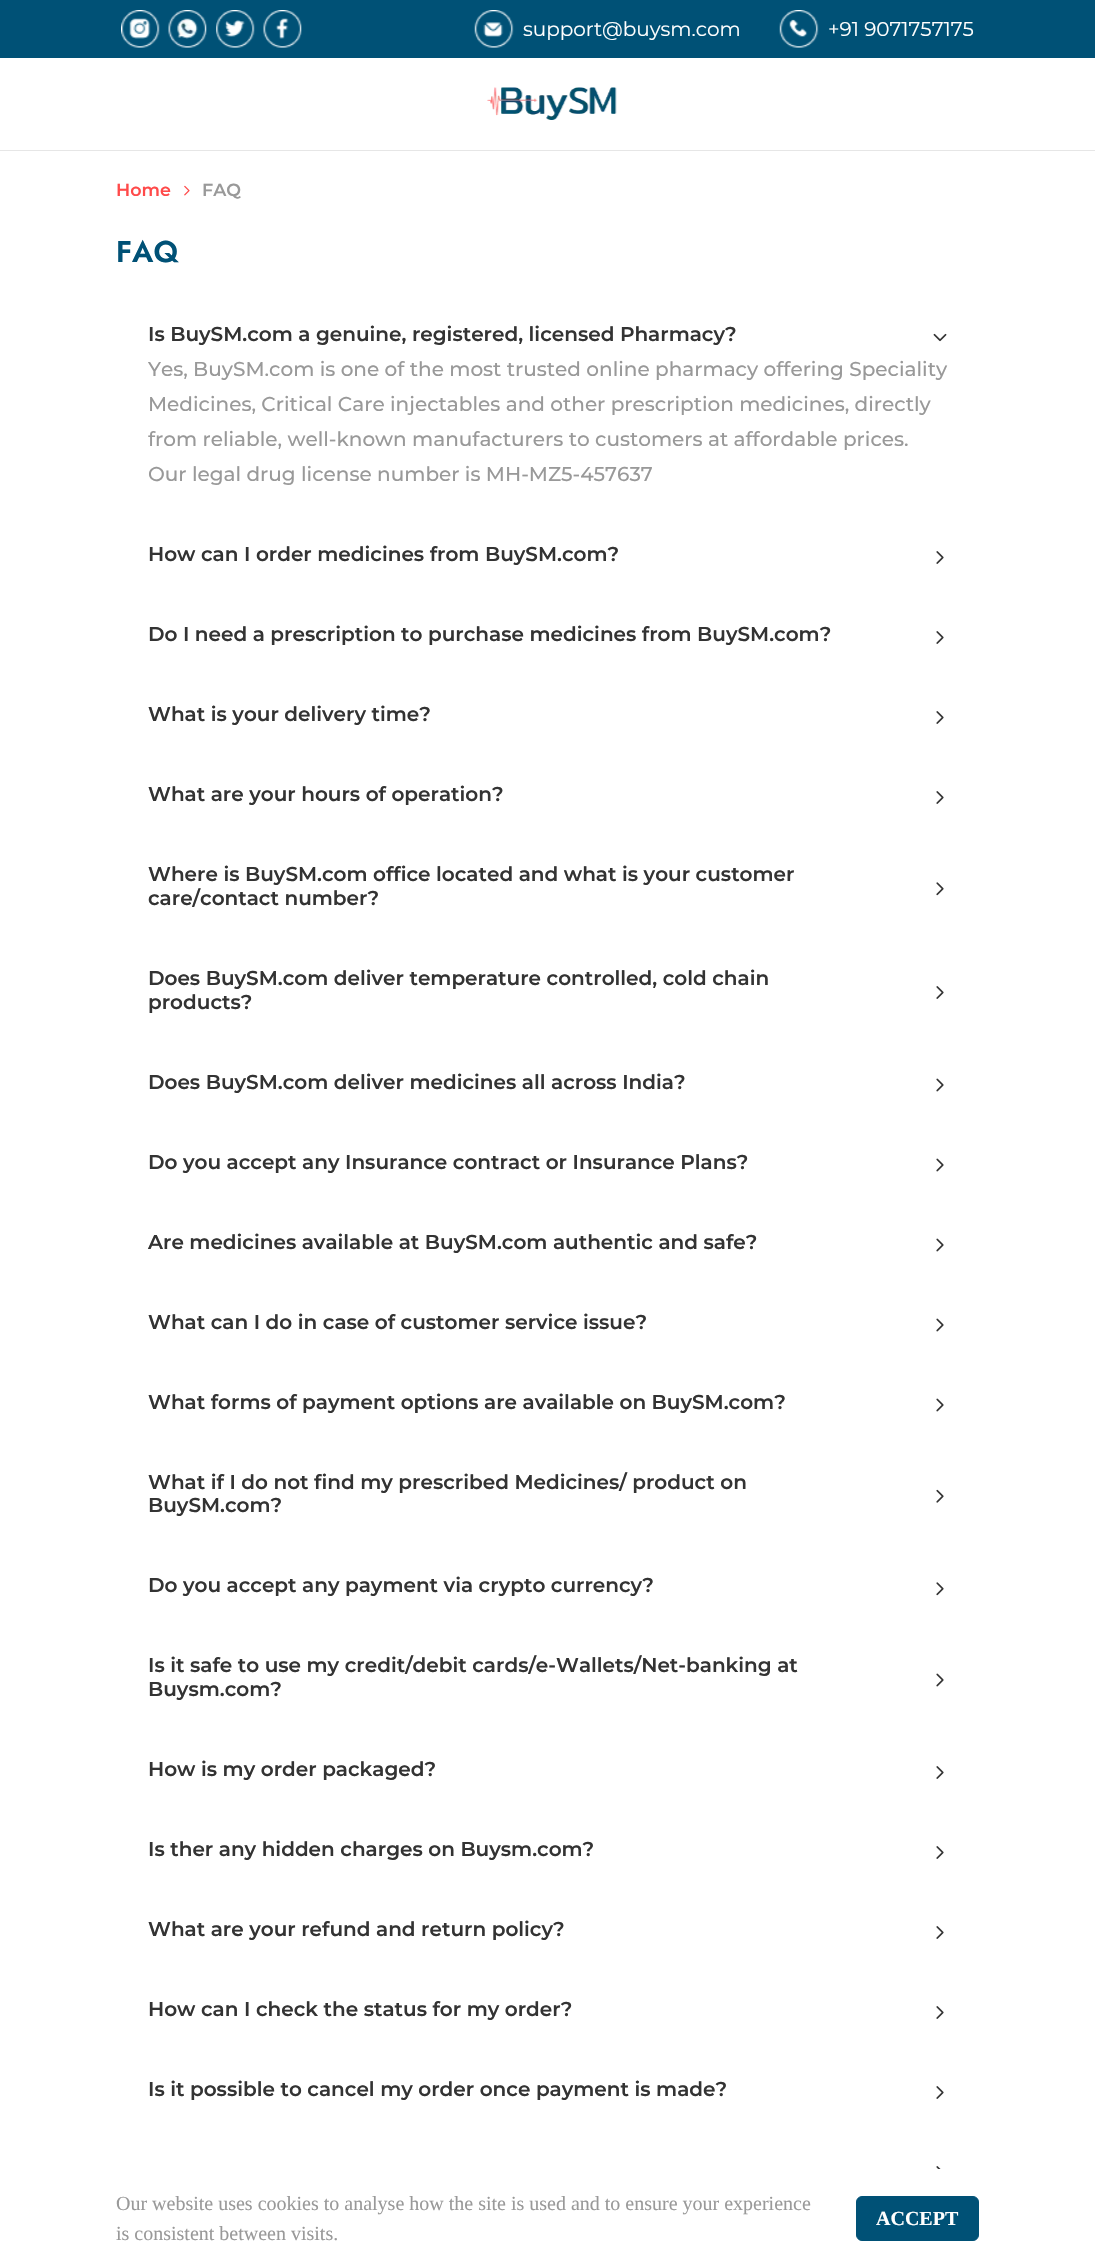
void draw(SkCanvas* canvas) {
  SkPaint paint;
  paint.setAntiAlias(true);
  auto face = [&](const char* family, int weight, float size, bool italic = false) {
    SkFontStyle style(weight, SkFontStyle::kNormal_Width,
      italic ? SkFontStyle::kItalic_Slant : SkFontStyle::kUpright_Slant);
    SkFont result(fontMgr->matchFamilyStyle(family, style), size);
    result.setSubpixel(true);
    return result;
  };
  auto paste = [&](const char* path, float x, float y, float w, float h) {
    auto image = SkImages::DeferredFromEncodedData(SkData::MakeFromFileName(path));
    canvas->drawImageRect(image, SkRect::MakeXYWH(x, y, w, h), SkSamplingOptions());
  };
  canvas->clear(0xffffffff);
  paint.setColor(0xff005176);
  canvas->drawRect(SkRect::MakeXYWH(0, 0, 1095, 58), paint);
  paste("img/1.png", 121, 10, 39, 38);
  paste("img/2.png", 168, 10, 39, 38);
  paste("img/3.png", 216, 10, 39, 38);
  paste("img/4.png", 263, 10, 39, 38);
  paste("img/5.png", 474, 10, 40, 38);
  paste("img/6.png", 779, 10, 40, 38);
  paint.setColor(0xffe6e6e6);
  canvas->drawRect(SkRect::MakeXYWH(0, 150, 1095, 1), paint);
  paste("img/7.png", 487, 87, 130, 33);
  paste("img/8.png", 184, 185, 6, 11);
  paste("img/9.png", 933, 333, 14, 9);
  paste("img/10.png", 936, 551, 8, 13);
  paste("img/10.png", 936, 631, 8, 13);
  paste("img/10.png", 936, 711, 8, 13);
  paste("img/10.png", 936, 791, 8, 13);
  paste("img/11.png", 936, 882, 8, 14);
  paste("img/12.png", 936, 986, 8, 13);
  paste("img/13.png", 936, 1078, 8, 14);
  paste("img/13.png", 936, 1158, 8, 14);
  paste("img/13.png", 936, 1238, 8, 14);
  paste("img/13.png", 936, 1318, 8, 14);
  paste("img/13.png", 936, 1398, 8, 14);
  paste("img/14.png", 936, 1489, 8, 14);
  paste("img/15.png", 936, 1582, 8, 14);
  paste("img/16.png", 936, 1673, 8, 14);
  paste("img/10.png", 936, 1766, 8, 13);
  paste("img/10.png", 936, 1846, 8, 13);
  paste("img/10.png", 936, 1926, 8, 13);
  paste("img/10.png", 936, 2006, 8, 13);
  paste("img/10.png", 936, 2086, 8, 13);
  paste("img/17.png", 936, 2166, 5, 3);
  paint.setColor(0xff005176);
  canvas->drawRoundRect(SkRect::MakeXYWH(856.5f, 2196.5f, 122, 44), 5.5f, 5.5f, paint);
  paint.setStroke(true);
  paint.setStrokeWidth(1);
  canvas->drawRoundRect(SkRect::MakeXYWH(856.5f, 2196.5f, 122, 44), 5.5f, 5.5f, paint);
  auto f0 = face("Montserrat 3", 100, 20);
  paint.setStroke(false);
  paint.setColor(0xffffffff);
  canvas->drawString("support@buysm.com", 523, 36, f0, paint);
  canvas->drawString("+91 9071757175", 828, 36, f0, paint);
  auto f1 = face("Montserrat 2", 100, 17.5f);
  paint.setColor(0xffff4a4a);
  canvas->drawString("Home", 116, 196, f1, paint);
  paint.setColor(0xff999999);
  canvas->drawString("FAQ", 202, 196, f1, paint);
  auto f2 = face("Jost", 600, 30);
  paint.setColor(0xff005176);
  canvas->drawString("FAQ", 116, 262, f2, paint);
  auto f3 = face("Montserrat 2", 100, 20);
  paint.setColor(0xff333333);
  canvas->drawString("Is BuySM.com a genuine, registered, licensed Pharmacy?", 148, 341, f3, paint);
  auto f4 = face("Montserrat", 100, 20);
  paint.setColor(0xff999999);
  {
    const struct { const char* s; float x, y; } items[] = {
      {"Yes, BuySM.com is one of the most trusted online pharmacy offering Speciality", 148, 376},
      {"Medicines, Critical Care injectables and other prescription medicines, directly", 148, 411},
      {"from reliable, well-known manufacturers to customers at affordable prices.", 148, 446},
      {"Our legal drug license number is MH-MZ5-457637", 148, 481},
    };
    for (auto [s, x, y] : items) {
      canvas->drawString(s, x, y, f4, paint);
    }
  }
  paint.setColor(0xff333333);
  {
    const struct { const char* s; float x, y; } items[] = {
      {"How can I order medicines from BuySM.com?", 148, 561},
      {"Do I need a prescription to purchase medicines from BuySM.com?", 148, 641},
      {"What is your delivery time?", 148, 721},
      {"What are your hours of operation?", 148, 801},
      {"Where is BuySM.com office located and what is your customer", 148, 881},
      {"care/contact number?", 148, 905},
      {"Does BuySM.com deliver temperature controlled, cold chain", 148, 985},
      {"products?", 148, 1009},
      {"Does BuySM.com deliver medicines all across India?", 148, 1089},
      {"Do you accept any Insurance contract or Insurance Plans?", 148, 1169},
      {"Are medicines available at BuySM.com authentic and safe?", 148, 1249},
      {"What can I do in case of customer service issue?", 148, 1329},
      {"What forms of payment options are available on BuySM.com?", 148, 1409},
      {"What if I do not find my prescribed Medicines/ product on", 148, 1489},
      {"BuySM.com?", 148, 1512},
      {"Do you accept any payment via crypto currency?", 148, 1592},
      {"Is it safe to use my credit/debit cards/e-Wallets/Net-banking at", 148, 1672},
      {"Buysm.com?", 148, 1696},
      {"How is my order packaged?", 148, 1776},
      {"Is ther any hidden charges on Buysm.com?", 148, 1856},
      {"What are your refund and return policy?", 148, 1936},
      {"How can I check the status for my order?", 148, 2016},
      {"Is it possible to cancel my order once payment is made?", 148, 2096},
    };
    for (auto [s, x, y] : items) {
      canvas->drawString(s, x, y, f3, paint);
    }
  }
  auto f5 = face("Liberation Serif", 400, 20);
  paint.setColor(0xff999999);
  canvas->drawString("Our website uses cookies to analyse how the site is used and to ensure your experience", 116, 2210, f5, paint);
  canvas->drawString("is consistent between visits.", 116, 2240, f5, paint);
  auto f6 = face("Liberation Serif", 700, 20);
  paint.setColor(0xffffffff);
  canvas->drawString("ACCEPT", 876, 2225, f6, paint);
}
